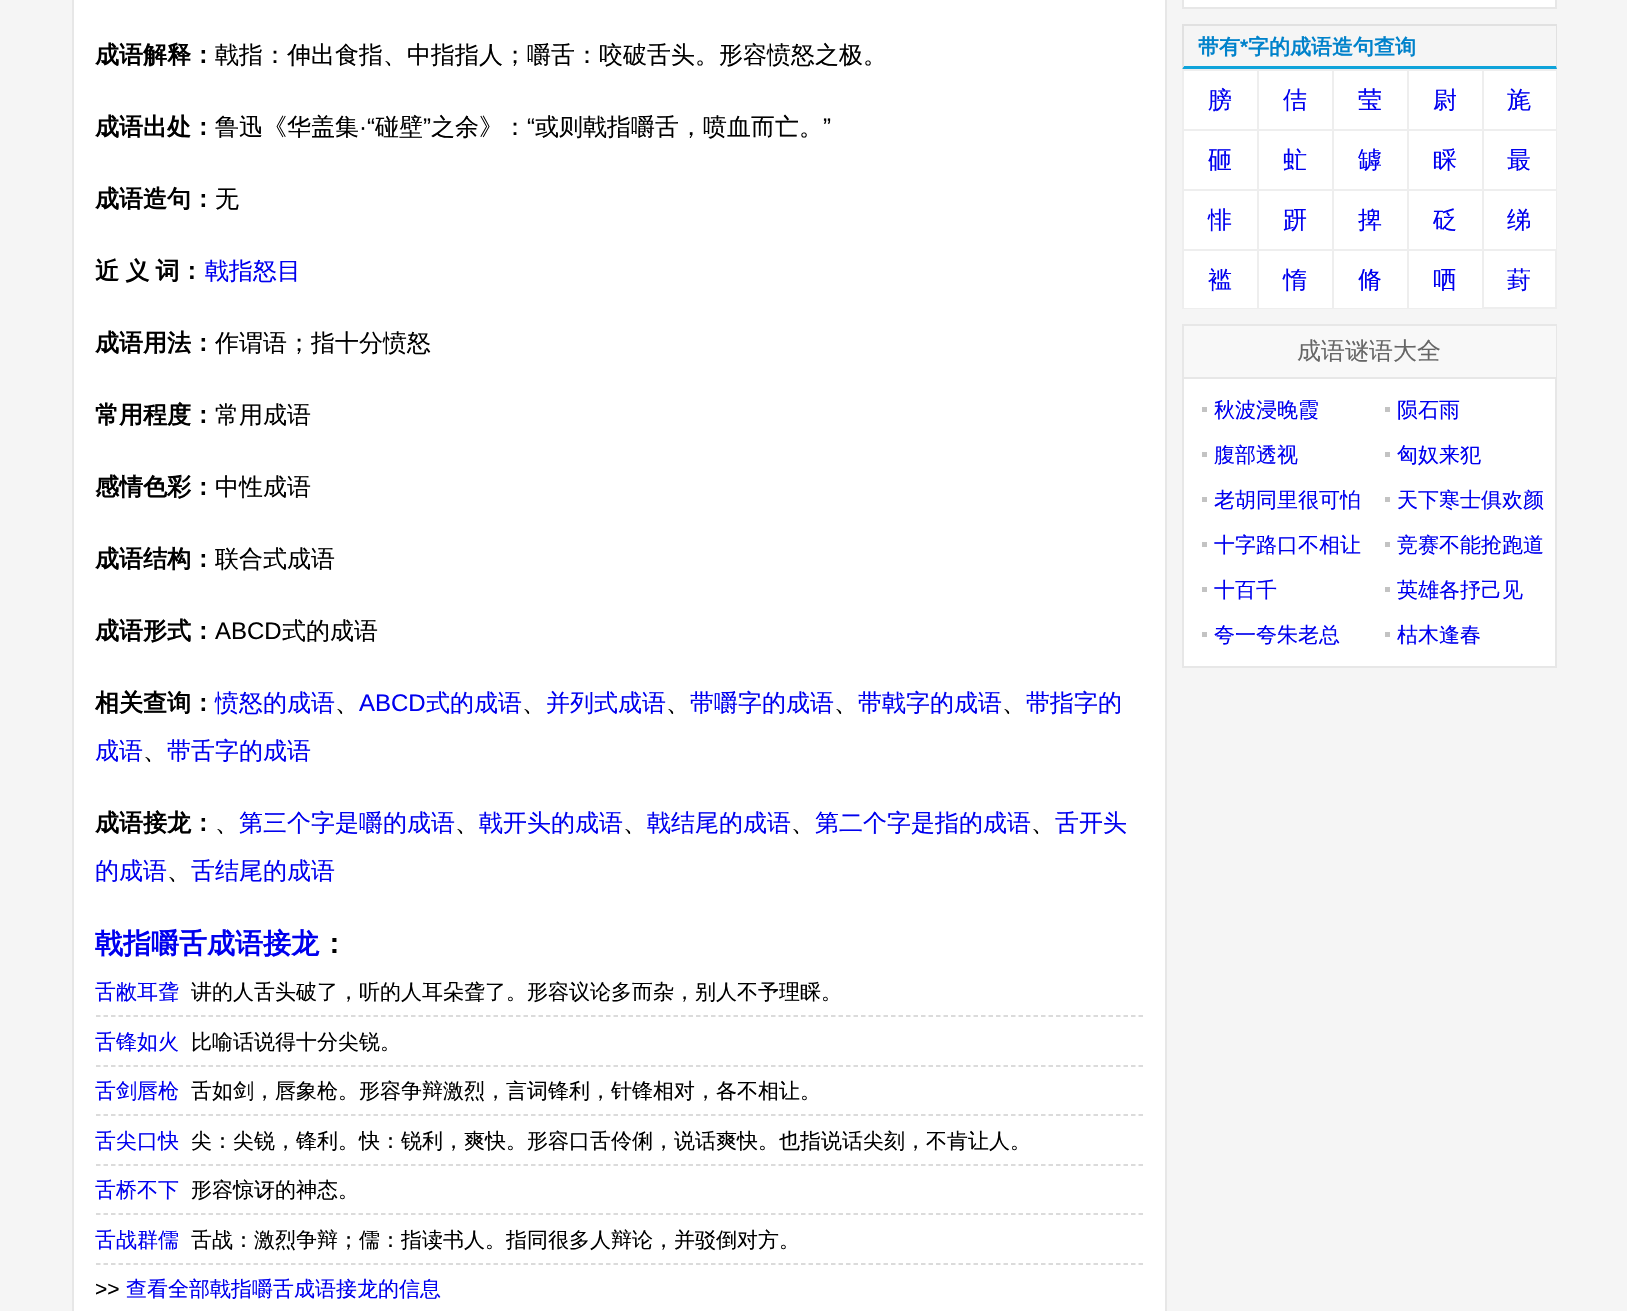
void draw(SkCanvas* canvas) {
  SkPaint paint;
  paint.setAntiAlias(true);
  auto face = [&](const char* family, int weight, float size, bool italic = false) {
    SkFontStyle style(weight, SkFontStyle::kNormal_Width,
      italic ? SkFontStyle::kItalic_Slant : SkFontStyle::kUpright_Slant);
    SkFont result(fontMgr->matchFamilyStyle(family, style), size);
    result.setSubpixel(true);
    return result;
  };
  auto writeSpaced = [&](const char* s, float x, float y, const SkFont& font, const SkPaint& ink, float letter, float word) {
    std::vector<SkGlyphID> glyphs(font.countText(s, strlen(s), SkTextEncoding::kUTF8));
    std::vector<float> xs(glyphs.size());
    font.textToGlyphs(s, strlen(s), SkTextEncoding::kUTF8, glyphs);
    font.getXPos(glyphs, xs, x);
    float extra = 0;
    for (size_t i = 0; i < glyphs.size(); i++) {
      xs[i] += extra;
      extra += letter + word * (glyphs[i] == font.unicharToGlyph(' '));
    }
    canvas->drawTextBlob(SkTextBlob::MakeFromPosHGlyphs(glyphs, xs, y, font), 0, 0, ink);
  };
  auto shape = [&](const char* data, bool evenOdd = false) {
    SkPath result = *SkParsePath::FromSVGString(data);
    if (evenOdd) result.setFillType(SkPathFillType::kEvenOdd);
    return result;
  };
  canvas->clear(0xfff5f5f5);
  paint.setColor(0xffffffff);
  canvas->drawRect(SkRect::MakeXYWH(73, -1, 1093, 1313), paint);
  paint.setStroke(true);
  paint.setStrokeWidth(2);
  paint.setColor(0xffe7e7e7);
  canvas->drawRect(SkRect::MakeXYWH(73, -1, 1093, 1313), paint);
  paint.setStrokeWidth(1.5f);
  paint.setColor(0xffcfcfcf);
  paint.setPathEffect(SkDashPathEffect::Make({{4.5f, 3}}, 0));
  canvas->drawPath(shape("M96 1016H1143"), paint);
  paint.setPathEffect(nullptr);
  paint.setPathEffect(SkDashPathEffect::Make({{4.5f, 3}}, 0));
  canvas->drawPath(shape("M96 1066H1143"), paint);
  paint.setPathEffect(nullptr);
  paint.setPathEffect(SkDashPathEffect::Make({{4.5f, 3}}, 0));
  canvas->drawPath(shape("M96 1115H1143"), paint);
  paint.setPathEffect(nullptr);
  paint.setPathEffect(SkDashPathEffect::Make({{4.5f, 3}}, 0));
  canvas->drawPath(shape("M96 1165H1143"), paint);
  paint.setPathEffect(nullptr);
  paint.setPathEffect(SkDashPathEffect::Make({{4.5f, 3}}, 0));
  canvas->drawPath(shape("M96 1214H1143"), paint);
  paint.setPathEffect(nullptr);
  paint.setPathEffect(SkDashPathEffect::Make({{4.5f, 3}}, 0));
  canvas->drawPath(shape("M96 1264H1143"), paint);
  paint.setPathEffect(nullptr);
  paint.setStroke(false);
  paint.setColor(0xffffffff);
  canvas->drawRect(SkRect::MakeXYWH(1183, -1, 373, 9), paint);
  paint.setStroke(true);
  paint.setStrokeWidth(2);
  paint.setColor(0xffe7e7e7);
  canvas->drawRect(SkRect::MakeXYWH(1183, -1, 373, 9), paint);
  paint.setStroke(false);
  paint.setColor(0xffe1e1e1);
  canvas->drawRect(SkRect::MakeXYWH(1182, 24, 375, 2), paint);
  canvas->drawPath(shape("M1557 24V69L1556 66V26Z"), paint);
  paint.setColor(0xff0ea3da);
  canvas->drawPath(shape("M1557 69H1182L1184 66H1556Z"), paint);
  paint.setColor(0xffe1e1e1);
  canvas->drawPath(shape("M1182 69V24L1184 26V66Z"), paint);
  {
    const struct { float x, y, w, h; SkColor color; } items[] = {
      {1184, 71, 372, 237, 0xffffffff},
      {1182, 69, 375, 2, 0xffeeeeee},
      {1182, 69, 2, 60, 0xffeeeeee},
      {1257, 69, 2, 60, 0xffeeeeee},
      {1332, 69, 2, 60, 0xffeeeeee},
      {1407, 69, 2, 60, 0xffeeeeee},
      {1556, 69, 1, 60, 0xffeeeeee},
      {1482, 69, 2, 60, 0xffeeeeee},
      {1182, 129, 375, 2, 0xffeeeeee},
      {1182, 129, 2, 60, 0xffeeeeee},
      {1257, 129, 2, 60, 0xffeeeeee},
      {1332, 129, 2, 60, 0xffeeeeee},
      {1407, 129, 2, 60, 0xffeeeeee},
      {1556, 129, 1, 60, 0xffeeeeee},
      {1482, 129, 2, 60, 0xffeeeeee},
      {1182, 189, 375, 2, 0xffeeeeee},
      {1182, 189, 2, 60, 0xffeeeeee},
      {1257, 189, 2, 60, 0xffeeeeee},
      {1332, 189, 2, 60, 0xffeeeeee},
      {1407, 189, 2, 60, 0xffeeeeee},
      {1556, 189, 1, 60, 0xffeeeeee},
      {1482, 189, 2, 60, 0xffeeeeee},
      {1182, 249, 300, 2, 0xffeeeeee},
      {1182, 308, 300, 1, 0xffeeeeee},
      {1182, 249, 2, 60, 0xffeeeeee},
      {1257, 249, 2, 60, 0xffeeeeee},
      {1332, 249, 2, 60, 0xffeeeeee},
      {1407, 249, 2, 60, 0xffeeeeee},
    };
    for (auto [x, y, w, h, color] : items) {
      paint.setColor(color);
      canvas->drawRect(SkRect::MakeXYWH(x, y, w, h), paint);
    }
  }
  paint.setStroke(true);
  canvas->drawRect(SkRect::MakeXYWH(1483, 250, 73, 58), paint);
  paint.setStroke(false);
  paint.setColor(0xffffffff);
  canvas->drawRect(SkRect::MakeXYWH(1184, 379, 371, 287), paint);
  paint.setStroke(true);
  paint.setColor(0xffe7e7e7);
  canvas->drawRect(SkRect::MakeXYWH(1183, 325, 373, 342), paint);
  paint.setStroke(false);
  {
    const struct { float x, y, w, h; SkColor color; } items[] = {
      {1184, 326, 372, 51, 0xfff8f8f8},
      {1184, 377, 372, 2, 0xffe7e7e7},
      {1202, 407, 5, 5, 0xffc3c3c3},
      {1385, 407, 5, 5, 0xffc3c3c3},
      {1202, 452, 5, 5, 0xffc3c3c3},
      {1385, 452, 5, 5, 0xffc3c3c3},
      {1202, 497, 5, 5, 0xffc3c3c3},
      {1385, 497, 5, 5, 0xffc3c3c3},
      {1202, 542, 5, 5, 0xffc3c3c3},
      {1385, 542, 5, 5, 0xffc3c3c3},
      {1202, 587, 5, 5, 0xffc3c3c3},
      {1385, 587, 5, 5, 0xffc3c3c3},
      {1202, 632, 5, 5, 0xffc3c3c3},
      {1385, 632, 5, 5, 0xffc3c3c3},
    };
    for (auto [x, y, w, h, color] : items) {
      paint.setColor(color);
      canvas->drawRect(SkRect::MakeXYWH(x, y, w, h), paint);
    }
  }
  auto f0 = face("WenQuanYi Zen Hei", 700, 24);
  paint.setColor(0xff000000);
  canvas->drawString("成语解释：", 95, 63, f0, paint);
  auto f1 = face("WenQuanYi Zen Hei", 500, 24);
  canvas->drawString("戟指：伸出食指、中指指人；嚼舌：咬破舌头。形容愤怒之极。", 215, 63, f1, paint);
  canvas->drawString("成语出处：", 95, 135, f0, paint);
  canvas->drawString("鲁迅《华盖集", 215, 135, f1, paint);
  auto f2 = face("Liberation Sans", 400, 24);
  canvas->drawString("·“", 359, 135, f2, paint);
  canvas->drawString("碰壁", 375, 135, f1, paint);
  canvas->drawString("”", 423, 135, f2, paint);
  canvas->drawString("之余》：", 431, 135, f1, paint);
  canvas->drawString("“", 527, 135, f2, paint);
  canvas->drawString("或则戟指嚼舌，喷血而亡。", 535, 135, f1, paint);
  canvas->drawString("”", 823, 135, f2, paint);
  canvas->drawString("成语造句：", 95, 207, f0, paint);
  canvas->drawString("无", 215, 207, f1, paint);
  writeSpaced("近 义 词：", 95, 279, f0, paint, 0, -1);
  paint.setColor(0xff0000ee);
  canvas->drawString("戟指怒目", 205, 279, f1, paint);
  paint.setColor(0xff000000);
  canvas->drawString("成语用法：", 95, 351, f0, paint);
  canvas->drawString("作谓语；指十分愤怒", 215, 351, f1, paint);
  canvas->drawString("常用程度：", 95, 423, f0, paint);
  canvas->drawString("常用成语", 215, 423, f1, paint);
  canvas->drawString("感情色彩：", 95, 495, f0, paint);
  canvas->drawString("中性成语", 215, 495, f1, paint);
  canvas->drawString("成语结构：", 95, 567, f0, paint);
  canvas->drawString("联合式成语", 215, 567, f1, paint);
  canvas->drawString("成语形式：", 95, 639, f0, paint);
  canvas->drawString("ABCD", 215, 639, f2, paint);
  canvas->drawString("式的成语", 282, 639, f1, paint);
  canvas->drawString("相关查询：", 95, 711, f0, paint);
  paint.setColor(0xff0000ee);
  canvas->drawString("愤怒的成语", 215, 711, f1, paint);
  paint.setColor(0xff000000);
  canvas->drawString("、", 335, 711, f1, paint);
  paint.setColor(0xff0000ee);
  canvas->drawString("ABCD", 359, 711, f2, paint);
  canvas->drawString("式的成语", 426, 711, f1, paint);
  paint.setColor(0xff000000);
  canvas->drawString("、", 522, 711, f1, paint);
  paint.setColor(0xff0000ee);
  canvas->drawString("并列式成语", 546, 711, f1, paint);
  paint.setColor(0xff000000);
  canvas->drawString("、", 666, 711, f1, paint);
  paint.setColor(0xff0000ee);
  canvas->drawString("带嚼字的成语", 690, 711, f1, paint);
  paint.setColor(0xff000000);
  canvas->drawString("、", 834, 711, f1, paint);
  paint.setColor(0xff0000ee);
  canvas->drawString("带戟字的成语", 858, 711, f1, paint);
  paint.setColor(0xff000000);
  canvas->drawString("、", 1002, 711, f1, paint);
  paint.setColor(0xff0000ee);
  canvas->drawString("带指字的", 1026, 711, f1, paint);
  canvas->drawString("成语", 95, 759, f1, paint);
  paint.setColor(0xff000000);
  canvas->drawString("、", 143, 759, f1, paint);
  paint.setColor(0xff0000ee);
  canvas->drawString("带舌字的成语", 167, 759, f1, paint);
  paint.setColor(0xff000000);
  canvas->drawString("成语接龙：", 95, 831, f0, paint);
  canvas->drawString("、", 215, 831, f1, paint);
  paint.setColor(0xff0000ee);
  canvas->drawString("第三个字是嚼的成语", 239, 831, f1, paint);
  paint.setColor(0xff000000);
  canvas->drawString("、", 455, 831, f1, paint);
  paint.setColor(0xff0000ee);
  canvas->drawString("戟开头的成语", 479, 831, f1, paint);
  paint.setColor(0xff000000);
  canvas->drawString("、", 623, 831, f1, paint);
  paint.setColor(0xff0000ee);
  canvas->drawString("戟结尾的成语", 647, 831, f1, paint);
  paint.setColor(0xff000000);
  canvas->drawString("、", 791, 831, f1, paint);
  paint.setColor(0xff0000ee);
  canvas->drawString("第二个字是指的成语", 815, 831, f1, paint);
  paint.setColor(0xff000000);
  canvas->drawString("、", 1031, 831, f1, paint);
  paint.setColor(0xff0000ee);
  canvas->drawString("舌开头", 1055, 831, f1, paint);
  canvas->drawString("的成语", 95, 879, f1, paint);
  paint.setColor(0xff000000);
  canvas->drawString("、", 167, 879, f1, paint);
  paint.setColor(0xff0000ee);
  canvas->drawString("舌结尾的成语", 191, 879, f1, paint);
  auto f3 = face("WenQuanYi Zen Hei", 700, 28);
  canvas->drawString("戟指嚼舌成语接龙", 95, 953, f3, paint);
  paint.setColor(0xff000000);
  canvas->drawString("：", 320, 953, f3, paint);
  auto f4 = face("WenQuanYi Zen Hei", 500, 21);
  paint.setColor(0xff0000ee);
  canvas->drawString("舌敝耳聋", 95, 999, f4, paint);
  paint.setColor(0xff000000);
  canvas->drawString("讲的人舌头破了，听的人耳朵聋了。形容议论多而杂，别人不予理睬。", 191, 999, f4, paint);
  paint.setColor(0xff0000ee);
  canvas->drawString("舌锋如火", 95, 1049, f4, paint);
  paint.setColor(0xff000000);
  canvas->drawString("比喻话说得十分尖锐。", 191, 1049, f4, paint);
  paint.setColor(0xff0000ee);
  canvas->drawString("舌剑唇枪", 95, 1098, f4, paint);
  paint.setColor(0xff000000);
  canvas->drawString("舌如剑，唇象枪。形容争辩激烈，言词锋利，针锋相对，各不相让。", 191, 1098, f4, paint);
  paint.setColor(0xff0000ee);
  canvas->drawString("舌尖口快", 95, 1148, f4, paint);
  paint.setColor(0xff000000);
  canvas->drawString("尖：尖锐，锋利。快：锐利，爽快。形容口舌伶俐，说话爽快。也指说话尖刻，不肯让人。", 191, 1148, f4, paint);
  paint.setColor(0xff0000ee);
  canvas->drawString("舌桥不下", 95, 1197, f4, paint);
  paint.setColor(0xff000000);
  canvas->drawString("形容惊讶的神态。", 191, 1197, f4, paint);
  paint.setColor(0xff0000ee);
  canvas->drawString("舌战群儒", 95, 1247, f4, paint);
  paint.setColor(0xff000000);
  canvas->drawString("舌战：激烈争辩；儒：指读书人。指同很多人辩论，并驳倒对方。", 191, 1247, f4, paint);
  auto f5 = face("Liberation Sans", 400, 21);
  canvas->drawString(">>", 95, 1296, f5, paint);
  paint.setColor(0xff0000ee);
  canvas->drawString("查看全部戟指嚼舌成语接龙的信息", 126, 1296, f4, paint);
  auto f6 = face("WenQuanYi Zen Hei", 700, 21);
  paint.setColor(0xff0082cb);
  canvas->drawString("带有", 1198, 54, f6, paint);
  auto f7 = face("Liberation Sans", 700, 21);
  canvas->drawString("*", 1240, 54, f7, paint);
  canvas->drawString("字的成语造句查询", 1248, 54, f6, paint);
  paint.setColor(0xff0000ee);
  {
    const struct { const char* s; float x, y; } items[] = {
      {"膀", 1208, 108},
      {"佶", 1283, 108},
      {"莹", 1358, 108},
      {"尉", 1433, 108},
      {"旄", 1507, 108},
      {"砸", 1208, 168},
      {"虻", 1283, 168},
      {"罅", 1358, 168},
      {"睬", 1433, 168},
      {"最", 1507, 168},
      {"悱", 1208, 228},
      {"趼", 1283, 228},
      {"捭", 1358, 228},
      {"砭", 1433, 228},
      {"绨", 1507, 228},
      {"褴", 1208, 288},
      {"惰", 1283, 288},
      {"脩", 1358, 288},
      {"哂", 1433, 288},
      {"葑", 1507, 288},
    };
    for (auto [s, x, y] : items) {
      canvas->drawString(s, x, y, f1, paint);
    }
  }
  paint.setColor(0xff666666);
  canvas->drawString("成语谜语大全", 1297, 359, f1, paint);
  paint.setColor(0xff0000ee);
  {
    const struct { const char* s; float x, y; } items[] = {
      {"秋波浸晚霞", 1214, 417},
      {"陨石雨", 1397, 417},
      {"腹部透视", 1214, 462},
      {"匈奴来犯", 1397, 462},
      {"老胡同里很可怕", 1214, 507},
      {"天下寒士俱欢颜", 1397, 507},
      {"十字路口不相让", 1214, 552},
      {"竞赛不能抢跑道", 1397, 552},
      {"十百千", 1214, 597},
      {"英雄各抒己见", 1397, 597},
      {"夸一夸朱老总", 1214, 642},
      {"枯木逢春", 1397, 642},
    };
    for (auto [s, x, y] : items) {
      canvas->drawString(s, x, y, f4, paint);
    }
  }
}
